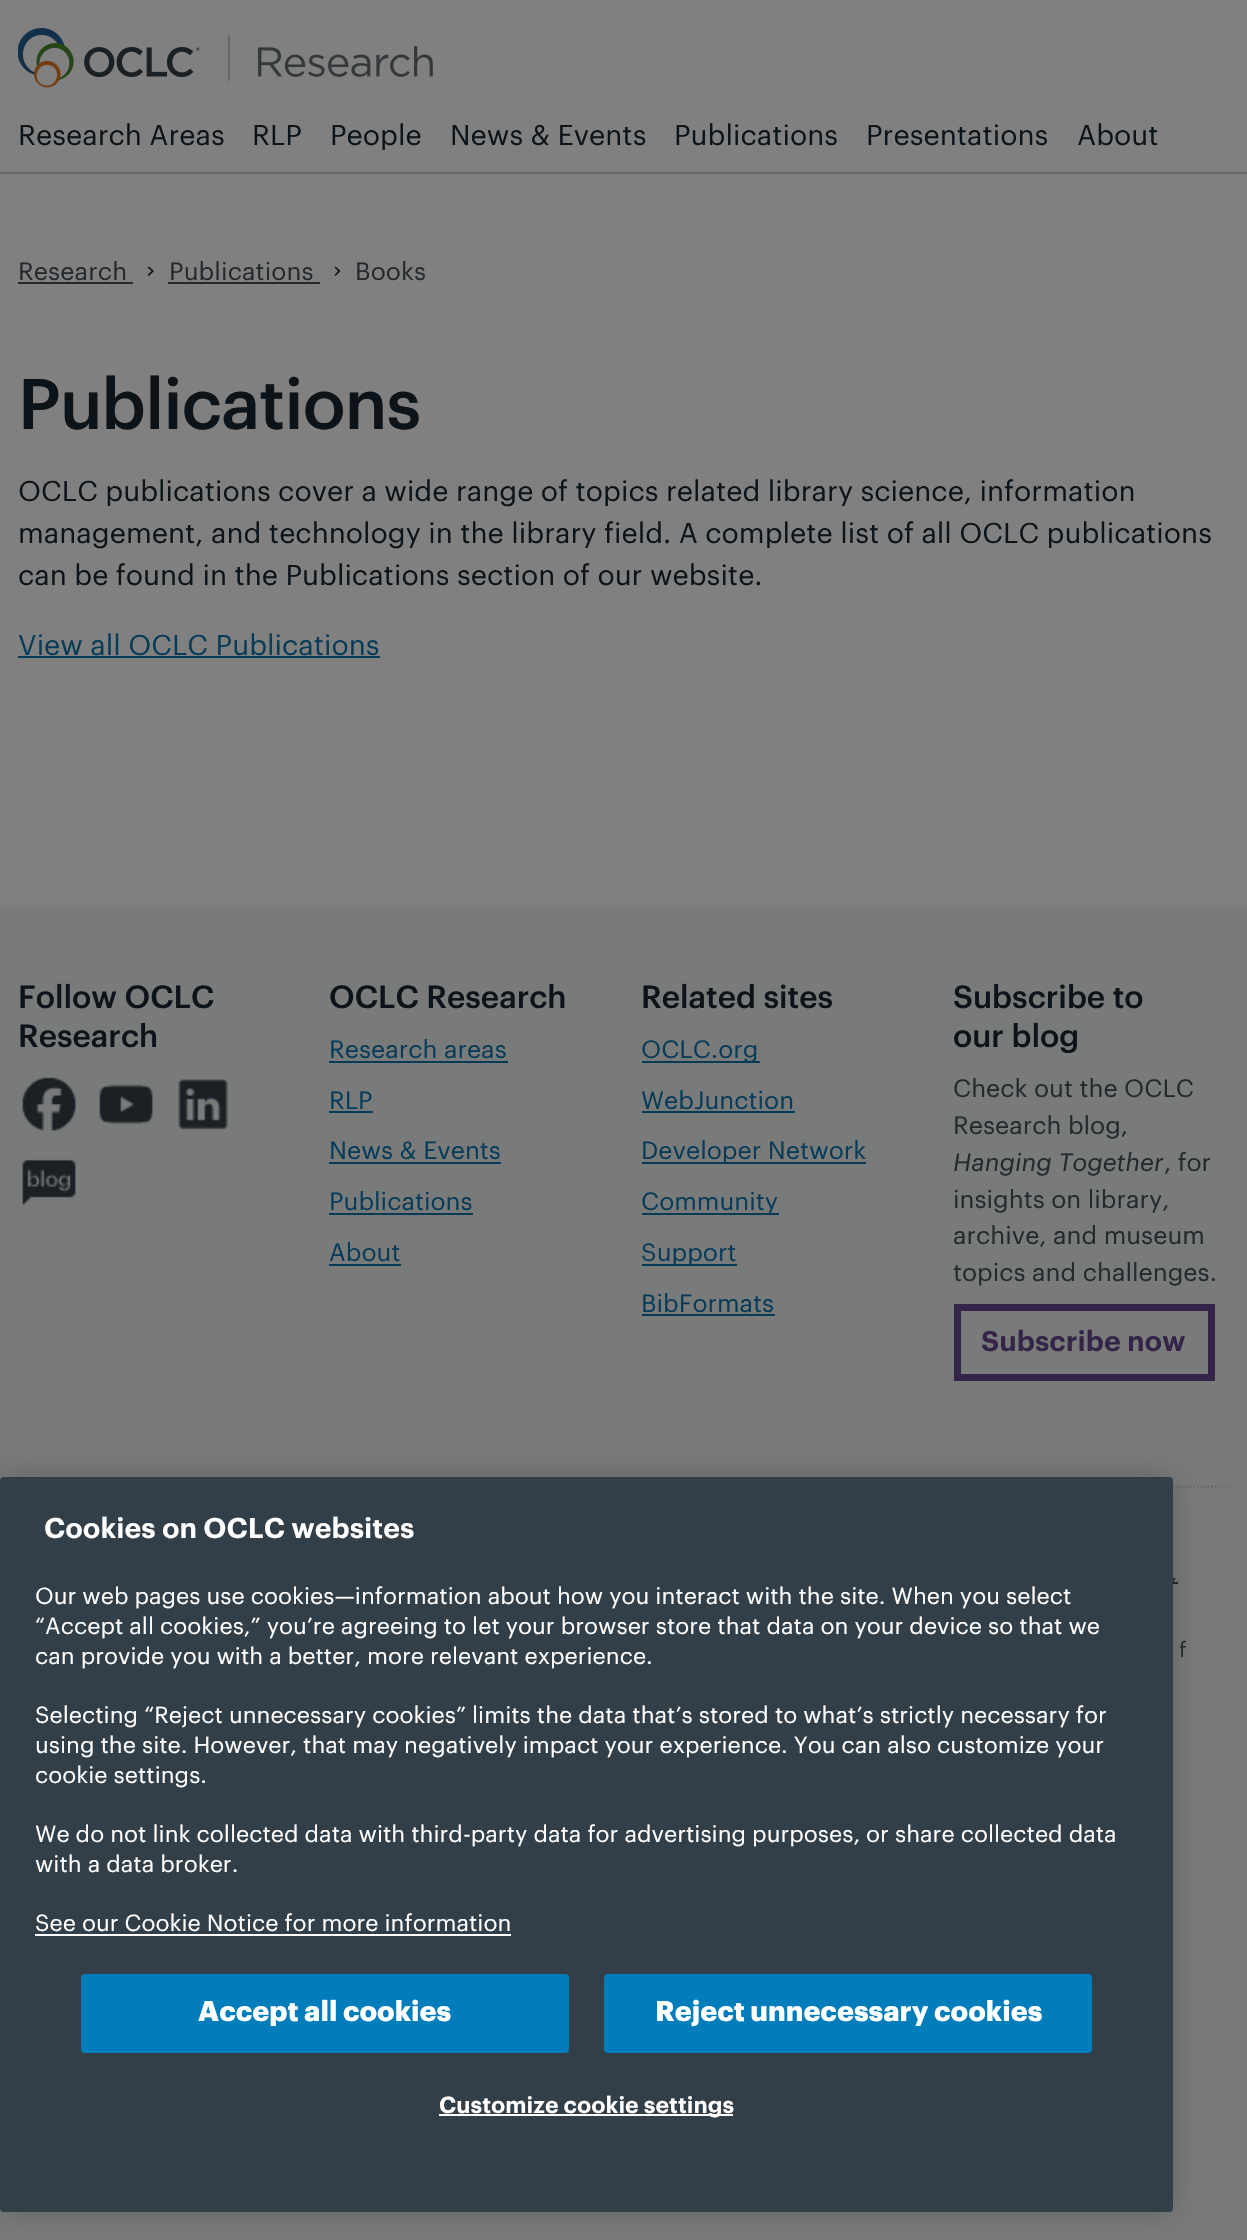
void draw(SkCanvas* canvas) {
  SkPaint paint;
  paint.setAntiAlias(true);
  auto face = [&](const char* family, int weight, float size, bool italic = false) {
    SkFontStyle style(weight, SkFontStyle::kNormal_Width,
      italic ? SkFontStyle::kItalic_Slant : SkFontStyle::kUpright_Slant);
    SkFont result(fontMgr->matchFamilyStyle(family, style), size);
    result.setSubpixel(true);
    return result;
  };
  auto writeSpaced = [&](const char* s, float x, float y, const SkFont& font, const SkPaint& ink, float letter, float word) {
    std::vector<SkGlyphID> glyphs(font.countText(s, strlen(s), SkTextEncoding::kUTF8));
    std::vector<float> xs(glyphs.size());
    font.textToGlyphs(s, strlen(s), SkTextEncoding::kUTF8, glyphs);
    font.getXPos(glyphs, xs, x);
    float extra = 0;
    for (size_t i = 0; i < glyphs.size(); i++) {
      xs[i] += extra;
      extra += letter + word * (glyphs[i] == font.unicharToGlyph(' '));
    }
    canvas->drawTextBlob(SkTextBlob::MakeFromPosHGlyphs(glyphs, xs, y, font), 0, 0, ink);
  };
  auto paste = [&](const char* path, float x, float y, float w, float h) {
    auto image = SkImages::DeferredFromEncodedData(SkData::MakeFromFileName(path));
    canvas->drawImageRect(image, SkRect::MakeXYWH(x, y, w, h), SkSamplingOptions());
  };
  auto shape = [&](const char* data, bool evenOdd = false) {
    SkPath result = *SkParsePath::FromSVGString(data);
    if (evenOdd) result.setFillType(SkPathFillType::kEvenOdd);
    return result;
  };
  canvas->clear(0xff797a7a);
  paint.setColor(0xff808080);
  canvas->drawRect(SkRect::MakeXYWH(0, 0, 1247, 905), paint);
  paint.setColor(0xff666869);
  canvas->drawRect(SkRect::MakeXYWH(0, 172, 1247, 2), paint);
  paste("img/1.png", 18, 28, 182, 60);
  canvas->drawRect(SkRect::MakeXYWH(228, 35, 2, 46), paint);
  paste("img/2.png", 258, 46, 175, 31);
  paint.setColor(0xff24292d);
  canvas->drawRect(SkRect::MakeXYWH(18, 282, 115, 2), paint);
  paint.setColor(0xff0d1419);
  canvas->drawPath(shape("M149 266.5L154 271H151.5L147.5 267.5ZM154 271L149 276L147.5 275L151.5 271Z"), paint);
  paint.setColor(0xff24292d);
  canvas->drawRect(SkRect::MakeXYWH(168, 282, 152, 2), paint);
  paint.setColor(0xff0d1419);
  canvas->drawPath(shape("M335.5 266.5L340.5 271H338L334.5 267.5ZM340.5 271L335.5 276L334.5 275L338 271Z"), paint);
  paint.setColor(0xff073b57);
  canvas->drawRect(SkRect::MakeXYWH(18, 656, 362, 2), paint);
  paste("img/3.png", 22, 1077, 54, 54);
  paste("img/4.png", 99, 1084, 54, 40);
  paste("img/5.png", 178, 1079, 50, 51);
  paste("img/6.png", 22, 1159, 54, 47);
  {
    const struct { float x, y, w, h; SkColor color; } items[] = {
      {329, 1061, 179, 2, 0xff063b57},
      {329, 1111, 44, 2, 0xff063b57},
      {329, 1162, 172, 2, 0xff063b57},
      {329, 1213, 144, 2, 0xff063b57},
      {329, 1264, 72, 2, 0xff063b57},
      {642, 1061, 118, 2, 0xff063b57},
      {642, 1111, 153, 2, 0xff063b57},
      {642, 1162, 224, 2, 0xff063b57},
      {642, 1213, 137, 2, 0xff063b57},
      {642, 1264, 95, 2, 0xff063b57},
      {642, 1314, 133, 2, 0xff063b57},
    };
    for (auto [x, y, w, h, color] : items) {
      paint.setColor(color);
      canvas->drawRect(SkRect::MakeXYWH(x, y, w, h), paint);
    }
  }
  paint.setStroke(true);
  paint.setStrokeWidth(7);
  paint.setColor(0xff342447);
  canvas->drawRect(SkRect::MakeXYWH(957.5f, 1307.5f, 254, 70), paint);
  paint.setStrokeWidth(1.8f);
  paint.setColor(0xff666869);
  paint.setPathEffect(SkDashPathEffect::Make({{1.75f, 1.75f}}, 0));
  canvas->drawPath(shape("M17.5 1486.5H1230"), paint);
  paint.setPathEffect(nullptr);
  paint.setStroke(false);
  paint.setColor(0xff22282c);
  canvas->drawRect(SkRect::MakeXYWH(1173, 1582, 5, 2), paint);
  paint.setColor(0x33000000);
  paint.setMaskFilter(SkMaskFilter::MakeBlur(kNormal_SkBlurStyle, 16));
  canvas->drawRoundRect(SkRect::MakeXYWH(0, 1477, 1173, 735), 4, 4, paint);
  paint.setMaskFilter(nullptr);
  auto f0 = face("Graphik", 400, 28);
  paint.setColor(0xff0d1419);
  {
    const struct { const char* s; float x, y; } items[] = {
      {"Research Areas", 18, 145},
      {"RLP", 252, 145},
      {"People", 330, 145},
      {"News & Events", 450, 145},
      {"Publications", 674, 145},
      {"Presentations", 866, 145},
      {"About", 1077, 145},
    };
    for (auto [s, x, y] : items) {
      canvas->drawString(s, x, y, f0, paint);
    }
  }
  auto f1 = face("Graphik", 400, 24.5f);
  paint.setColor(0xff24292d);
  {
    const struct { const char* s; float x, y; } items[] = {
      {"Research", 18, 280},
      {"Publications", 169, 280},
      {"Books", 355, 280},
    };
    for (auto [s, x, y] : items) {
      writeSpaced(s, x, y, f1, paint, 0.1f, 0);
    }
  }
  auto f2 = face("Graphik", 500, 70);
  paint.setColor(0xff0d1419);
  writeSpaced("Publications", 18, 429, f2, paint, -1, 0);
  {
    const struct { const char* s; float x, y; } items[] = {
      {"OCLC publications cover a wide range of topics related library science, information", 18, 501},
      {"management, and technology in the library field. A complete list of all OCLC publications", 18, 543},
      {"can be found in the Publications section of our website.", 18, 585},
    };
    for (auto [s, x, y] : items) {
      canvas->drawString(s, x, y, f0, paint);
    }
  }
  paint.setColor(0xff073b57);
  canvas->drawString("View all OCLC Publications", 18, 655, f0, paint);
  auto f3 = face("Graphik", 500, 31.5f);
  paint.setColor(0xff0d1419);
  {
    const struct { const char* s; float x, y; } items[] = {
      {"Follow OCLC", 18, 1008},
      {"Research", 18, 1047},
      {"OCLC Research", 329, 1008},
    };
    for (auto [s, x, y] : items) {
      writeSpaced(s, x, y, f3, paint, -0.1f, 0);
    }
  }
  paint.setColor(0xff073b57);
  {
    const struct { const char* s; float x, y; } items[] = {
      {"Research areas", 329, 1058},
      {"RLP", 329, 1109},
      {"News & Events", 329, 1159},
      {"Publications", 329, 1210},
      {"About", 329, 1261},
    };
    for (auto [s, x, y] : items) {
      canvas->drawString(s, x, y, f1, paint);
    }
  }
  paint.setColor(0xff0d1419);
  writeSpaced("Related sites", 641, 1008, f3, paint, -0.1f, 0);
  paint.setColor(0xff073b57);
  {
    const struct { const char* s; float x, y; } items[] = {
      {"OCLC.org", 641, 1058},
      {"WebJunction", 641, 1109},
      {"Developer Network", 641, 1159},
      {"Community", 641, 1210},
      {"Support", 641, 1261},
      {"BibFormats", 641, 1312},
    };
    for (auto [s, x, y] : items) {
      canvas->drawString(s, x, y, f1, paint);
    }
  }
  paint.setColor(0xff0d1419);
  writeSpaced("Subscribe to", 953, 1008, f3, paint, -0.1f, 0);
  writeSpaced("our blog", 953, 1047, f3, paint, -0.1f, 0);
  paint.setColor(0xff24292d);
  canvas->drawString("Check out the OCLC", 953, 1097, f1, paint);
  canvas->drawString("Research blog,", 953, 1134, f1, paint);
  auto f4 = face("Graphik", 400, 24.5f, true);
  canvas->drawString("Hanging Together", 953, 1171, f4, paint);
  {
    const struct { const char* s; float x, y; } items[] = {
      {", for", 1164, 1171},
      {"insights on library,", 953, 1208},
      {"archive, and museum", 953, 1244},
      {"topics and challenges.", 953, 1281},
    };
    for (auto [s, x, y] : items) {
      canvas->drawString(s, x, y, f1, paint);
    }
  }
  auto f5 = face("Graphik", 600, 28);
  paint.setColor(0xff342447);
  canvas->drawString("Subscribe now", 981, 1351, f5, paint);
  auto f6 = face("Graphik", 400, 21);
  paint.setColor(0xff24292d);
  canvas->drawString(",", 1171, 1580, f6, paint);
  canvas->drawString("f", 1179, 1657, f6, paint);
  paint.setColor(0xff333f48);
  canvas->drawRoundRect(SkRect::MakeXYWH(0, 1477, 1173, 735), 4, 4, paint);
  paint.setColor(0xffffffff);
  canvas->drawString("Cookies on OCLC websites", 44, 1538, f5, paint);
  auto f7 = face("Graphik", 400, 22.75f);
  {
    const struct { const char* s; float x, y; } items[] = {
      {"Our web pages use cookies—information about how you interact with the site. When you select", 35, 1604},
      {"“Accept all cookies,” you’re agreeing to let your browser store that data on your device so that we", 35, 1634},
      {"can provide you with a better, more relevant experience.", 35, 1664},
      {"Selecting “Reject unnecessary cookies” limits the data that’s stored to what’s strictly necessary for", 35, 1723},
      {"using the site. However, that may negatively impact your experience. You can also customize your", 35, 1753},
      {"cookie settings.", 35, 1783},
      {"We do not link collected data with third-party data for advertising purposes, or share collected data", 35, 1842},
      {"with a data broker.", 35, 1872},
      {"See our Cookie Notice for more information", 35, 1931},
    };
    for (auto [s, x, y] : items) {
      canvas->drawString(s, x, y, f7, paint);
    }
  }
  canvas->drawRect(SkRect::MakeXYWH(35, 1934, 476, 2), paint);
  paint.setColor(0xff007dba);
  canvas->drawRoundRect(SkRect::MakeXYWH(82, 1975, 486, 77), 3, 3, paint);
  paint.setStroke(true);
  paint.setStrokeWidth(2);
  canvas->drawRoundRect(SkRect::MakeXYWH(82, 1975, 486, 77), 3, 3, paint);
  auto f8 = face("Graphik", 700, 28);
  paint.setStroke(false);
  paint.setColor(0xffffffff);
  canvas->drawString("Accept all cookies", 198, 2021, f8, paint);
  paint.setColor(0xff007dba);
  canvas->drawRoundRect(SkRect::MakeXYWH(605, 1975, 486, 77), 3, 3, paint);
  paint.setStroke(true);
  canvas->drawRoundRect(SkRect::MakeXYWH(605, 1975, 486, 77), 3, 3, paint);
  paint.setStroke(false);
  paint.setColor(0xffffffff);
  canvas->drawString("Reject unnecessary cookies", 655, 2021, f8, paint);
  canvas->drawRect(SkRect::MakeXYWH(439, 2114, 294, 2), paint);
  auto f9 = face("Graphik", 600, 22.75f);
  canvas->drawString("Customize cookie settings", 439, 2113, f9, paint);
}
